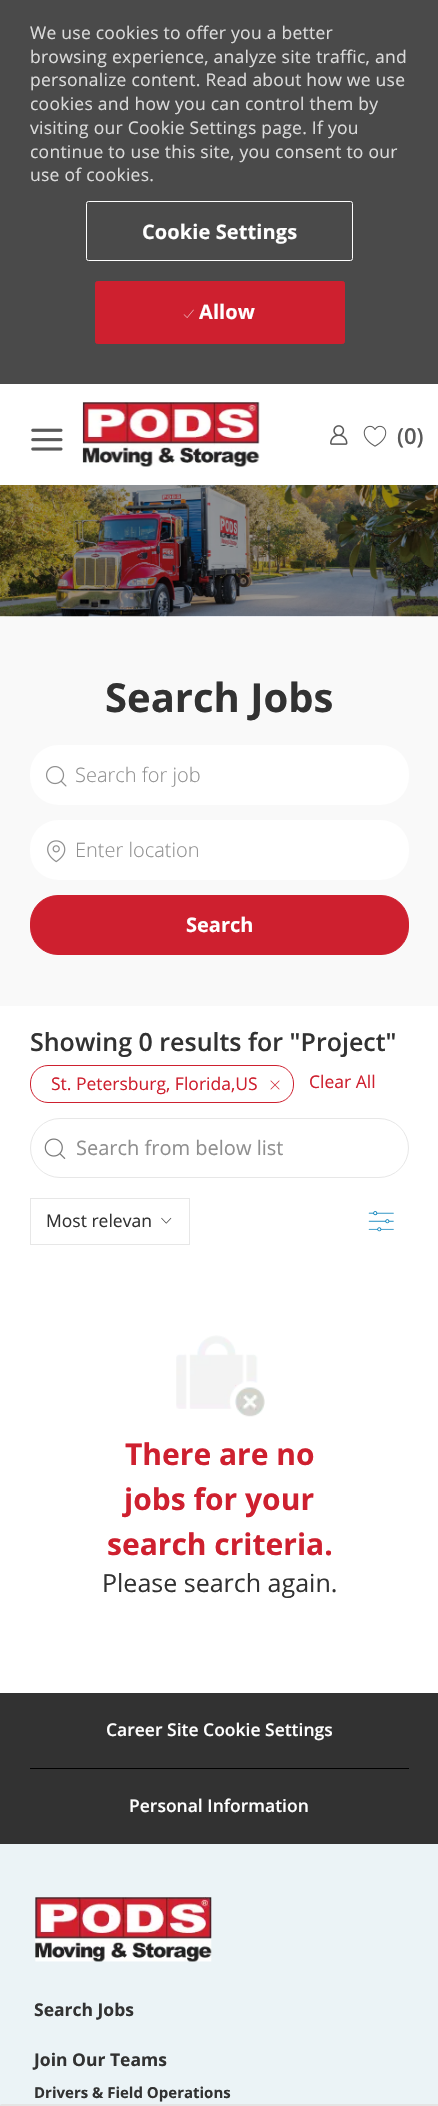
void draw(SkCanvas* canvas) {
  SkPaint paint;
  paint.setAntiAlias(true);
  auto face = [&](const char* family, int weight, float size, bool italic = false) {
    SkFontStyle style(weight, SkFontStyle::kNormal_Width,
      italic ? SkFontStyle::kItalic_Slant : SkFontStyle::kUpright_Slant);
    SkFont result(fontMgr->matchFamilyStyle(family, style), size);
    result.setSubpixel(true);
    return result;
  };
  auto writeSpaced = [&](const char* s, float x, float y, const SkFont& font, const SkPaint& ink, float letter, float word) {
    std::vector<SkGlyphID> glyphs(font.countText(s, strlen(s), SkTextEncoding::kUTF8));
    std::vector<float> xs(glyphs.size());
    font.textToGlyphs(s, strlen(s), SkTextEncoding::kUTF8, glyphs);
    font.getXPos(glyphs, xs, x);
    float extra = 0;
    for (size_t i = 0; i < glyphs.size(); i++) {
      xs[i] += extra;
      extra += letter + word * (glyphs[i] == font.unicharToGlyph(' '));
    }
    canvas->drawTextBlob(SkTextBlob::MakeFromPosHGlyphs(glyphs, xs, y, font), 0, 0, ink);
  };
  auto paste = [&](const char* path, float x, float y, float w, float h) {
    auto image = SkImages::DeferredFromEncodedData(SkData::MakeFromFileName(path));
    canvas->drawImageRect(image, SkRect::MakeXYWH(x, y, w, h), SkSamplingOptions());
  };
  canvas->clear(0xffffffff);
  paint.setColor(0xff4a4a4a);
  canvas->drawRect(SkRect::MakeXYWH(0, 0, 438, 384), paint);
  paint.setStroke(true);
  paint.setStrokeWidth(1);
  paint.setColor(0xffffffff);
  canvas->drawRoundRect(SkRect::MakeXYWH(86.5f, 201.5f, 266, 59), 2, 2, paint);
  paint.setStroke(false);
  paint.setColor(0xffce202f);
  canvas->drawRoundRect(SkRect::MakeXYWH(95.5f, 281.5f, 249, 62), 2, 2, paint);
  paint.setStroke(true);
  canvas->drawRoundRect(SkRect::MakeXYWH(95.5f, 281.5f, 249, 62), 2, 2, paint);
  paste("img/1.png", 183, 309, 11, 9);
  paste("img/2.png", 31, 428, 32, 23);
  paste("img/3.png", 82, 402, 178, 65);
  paste("img/4.png", 330, 425, 18, 20);
  paste("img/5.png", 363, 425, 24, 22);
  paint.setStroke(false);
  paint.setColor(0xfff9f9f9);
  canvas->drawRect(SkRect::MakeXYWH(0, 616, 438, 390), paint);
  paste("img/6.png", 0, 485, 438, 132);
  paint.setColor(0xffffffff);
  canvas->drawRoundRect(SkRect::MakeXYWH(30, 745, 379, 60), 28, 28, paint);
  paste("img/7.png", 46, 766, 21, 21);
  canvas->drawRoundRect(SkRect::MakeXYWH(30, 820, 379, 60), 28, 28, paint);
  paste("img/8.png", 47, 840, 19, 23);
  paint.setColor(0xffce202f);
  canvas->drawRoundRect(SkRect::MakeXYWH(30.5f, 895.5f, 378, 59), 27.5f, 27.5f, paint);
  paint.setStroke(true);
  canvas->drawRoundRect(SkRect::MakeXYWH(30.5f, 895.5f, 378, 59), 27.5f, 27.5f, paint);
  canvas->drawRoundRect(SkRect::MakeXYWH(30.5f, 1065.5f, 263, 37), 17.5f, 17.5f, paint);
  paste("img/9.png", 270, 1080, 10, 10);
  paint.setColor(0xffe7e7e7);
  canvas->drawRoundRect(SkRect::MakeXYWH(30.5f, 1118.5f, 378, 59), 29.5f, 29.5f, paint);
  paste("img/10.png", 44, 1138, 22, 21);
  canvas->drawRect(SkRect::MakeXYWH(30.5f, 1198.5f, 159, 46), paint);
  paste("img/11.png", 161, 1217, 11, 7);
  paste("img/12.png", 368, 1211, 26, 21);
  paste("img/13.png", 176, 1335, 89, 82);
  paint.setStroke(false);
  paint.setColor(0xffebf3f6);
  canvas->drawRect(SkRect::MakeXYWH(0, 1844, 438, 262), paint);
  paint.setColor(0xffe4e4e4);
  canvas->drawRoundRect(SkRect::MakeXYWH(0, 2104, 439, 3), 1.5f, 1.5f, paint);
  paint.setColor(0xff323232);
  canvas->drawRect(SkRect::MakeXYWH(0, 1693, 438, 151), paint);
  paint.setColor(0xff000000);
  canvas->drawRect(SkRect::MakeXYWH(30, 1768, 379, 1), paint);
  paste("img/14.png", 35, 1897, 177, 65);
  auto f0 = face("Open Sans", 400, 17.5f);
  paint.setColor(0xffdbdbdb);
  {
    const struct { const char* s; float x, y; } items[] = {
      {"We use cookies to offer you a better", 30, 39},
      {"browsing experience, analyze site traffic, and", 30, 63},
      {"personalize content. Read about how we use", 30, 86},
      {"cookies and how you can control them by", 30, 110},
      {"visiting our Cookie Settings page. If you", 30, 134},
      {"continue to use this site, you consent to our", 30, 158},
      {"use of cookies.", 30, 181},
    };
    for (auto [s, x, y] : items) {
      writeSpaced(s, x, y, f0, paint, 0.25f, 0);
    }
  }
  auto f1 = face("Open Sans", 700, 20);
  paint.setColor(0xffffffff);
  writeSpaced("Cookie Settings", 142, 239, f1, paint, 0.1f, 0);
  writeSpaced("Allow", 199, 319, f1, paint, 0.1f, 0);
  auto f2 = face("Open Sans", 600, 22);
  paint.setColor(0xff595959);
  canvas->drawString("(0)", 397, 444, f2, paint);
  auto f3 = face("Open Sans", 700, 40);
  paint.setColor(0xff323232);
  canvas->drawString("Search Jobs", 105, 712, f3, paint);
  auto f4 = face("Open Sans", 300, 20);
  paint.setColor(0xff8f8f8f);
  canvas->drawString("Search for job", 75, 782, f4, paint);
  canvas->drawString("Enter location", 75, 857, f4, paint);
  paint.setColor(0xffffffff);
  canvas->drawString("Search", 186, 932, f1, paint);
  auto f5 = face("Open Sans", 600, 25);
  paint.setColor(0xff323232);
  canvas->drawString("Showing 0 results for \"Project\"", 30, 1051, f5, paint);
  paint.setColor(0xffce202f);
  canvas->drawString("St. Petersburg, Florida,US", 51, 1090, f0, paint);
  canvas->drawString("Clear All", 309, 1088, f0, paint);
  auto f6 = face("Open Sans", 400, 20);
  paint.setColor(0xff8f8f8f);
  canvas->drawString("Search from below list", 76, 1155, f6, paint);
  paint.setColor(0xff323232);
  canvas->drawString("Most relevan", 46, 1227, f0, paint);
  auto f7 = face("Open Sans", 700, 30);
  paint.setColor(0xffce202f);
  {
    const struct { const char* s; float x, y; } items[] = {
      {"There are no", 125, 1465},
      {"jobs for your", 124, 1510},
      {"search criteria.", 107, 1555},
    };
    for (auto [s, x, y] : items) {
      canvas->drawString(s, x, y, f7, paint);
    }
  }
  auto f8 = face("Open Sans", 400, 25);
  paint.setColor(0xff323232);
  canvas->drawString("Please search again.", 102, 1592, f8, paint);
  auto f9 = face("Open Sans", 600, 17.5f);
  paint.setColor(0xffffffff);
  canvas->drawString("Career Site Cookie Settings", 106, 1736, f9, paint);
  canvas->drawString("Personal Information", 129, 1812, f9, paint);
  auto f10 = face("Open Sans", 700, 17.5f);
  paint.setColor(0xff323232);
  canvas->drawString("Search Jobs", 34, 2016, f10, paint);
  canvas->drawString("Join Our Teams", 34, 2066, f10, paint);
  auto f11 = face("Open Sans", 700, 15);
  canvas->drawString("Drivers & Field Operations", 34, 2098, f11, paint);
}
